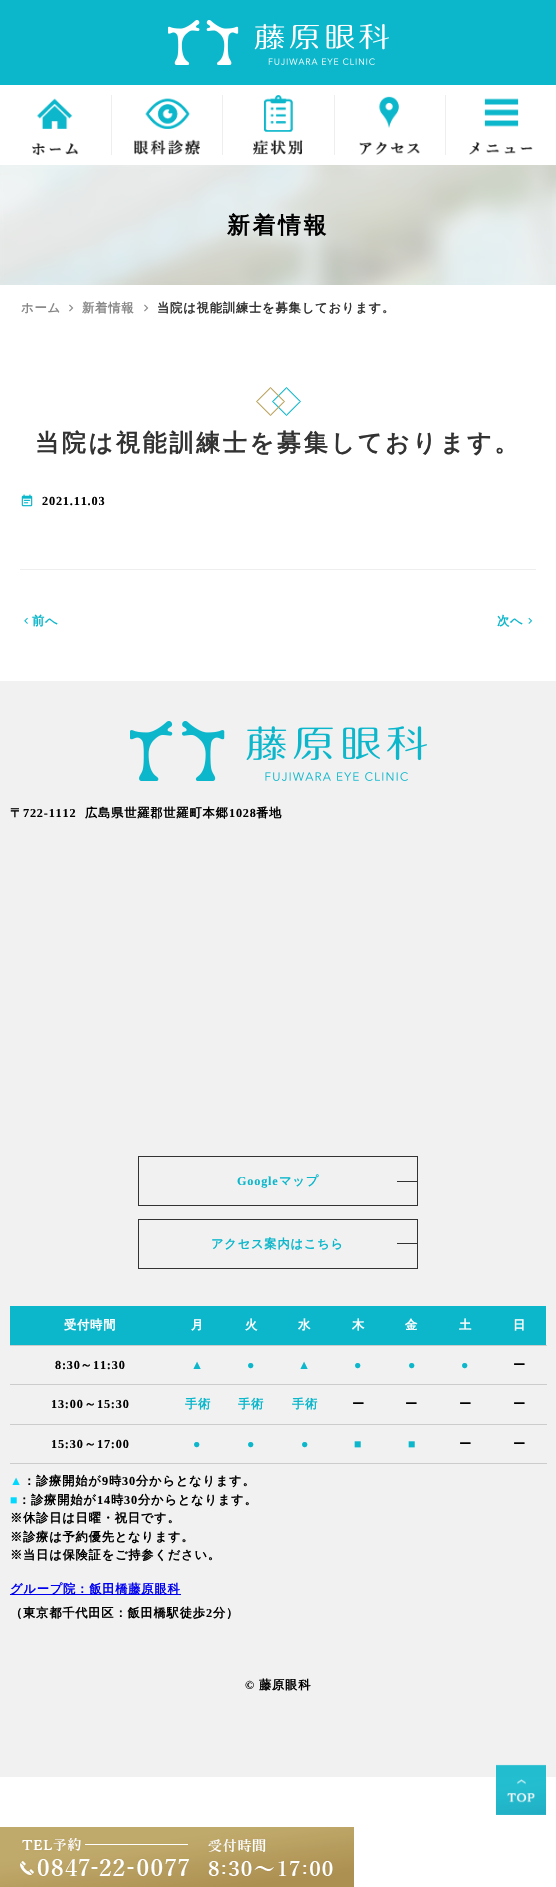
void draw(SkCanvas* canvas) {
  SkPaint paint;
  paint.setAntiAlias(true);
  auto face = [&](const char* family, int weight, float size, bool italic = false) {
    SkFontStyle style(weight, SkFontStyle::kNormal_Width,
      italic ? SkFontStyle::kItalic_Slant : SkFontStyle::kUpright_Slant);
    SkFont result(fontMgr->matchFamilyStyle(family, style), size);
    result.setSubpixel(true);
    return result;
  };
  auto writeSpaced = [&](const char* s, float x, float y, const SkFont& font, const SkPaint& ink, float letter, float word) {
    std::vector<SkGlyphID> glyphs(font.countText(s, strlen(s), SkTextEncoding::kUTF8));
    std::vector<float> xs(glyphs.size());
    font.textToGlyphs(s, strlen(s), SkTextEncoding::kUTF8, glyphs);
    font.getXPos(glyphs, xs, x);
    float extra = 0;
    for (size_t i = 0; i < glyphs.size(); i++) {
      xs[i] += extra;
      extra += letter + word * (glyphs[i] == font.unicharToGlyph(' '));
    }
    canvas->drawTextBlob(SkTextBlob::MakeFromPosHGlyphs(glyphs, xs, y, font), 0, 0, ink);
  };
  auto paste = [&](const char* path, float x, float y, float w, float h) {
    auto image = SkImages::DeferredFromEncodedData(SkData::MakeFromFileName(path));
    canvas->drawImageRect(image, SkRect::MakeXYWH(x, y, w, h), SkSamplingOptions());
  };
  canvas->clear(0xffffffff);
  paint.setColor(0xff0cb7cb);
  canvas->drawRect(SkRect::MakeXYWH(0, 0, 556, 85), paint);
  paste("img/1.png", 168, 20, 221, 45);
  paste("img/2.png", 32, 98, 47, 57);
  paint.setColor(0xffeeeeee);
  canvas->drawRect(SkRect::MakeXYWH(111, 95, 1, 60), paint);
  paste("img/3.png", 134, 98, 66, 57);
  canvas->drawRect(SkRect::MakeXYWH(222, 95, 1, 60), paint);
  paste("img/4.png", 253, 95, 50, 60);
  canvas->drawRect(SkRect::MakeXYWH(334, 95, 1, 60), paint);
  paste("img/5.png", 359, 96, 61, 59);
  canvas->drawRect(SkRect::MakeXYWH(445, 95, 1, 60), paint);
  paste("img/6.png", 469, 98, 64, 57);
  paste("img/7.png", 0, 165, 556, 120);
  paste("img/8.png", 0, 165, 556, 120);
  paste("img/9.png", 69, 304, 5, 8);
  paste("img/9.png", 144, 304, 5, 8);
  paste("img/10.png", 256, 387, 45, 29);
  paste("img/11.png", 21, 494, 12, 13);
  canvas->drawRect(SkRect::MakeXYWH(20, 569, 516, 1), paint);
  paste("img/12.png", 24, 617, 4, 7);
  paste("img/13.png", 528, 617, 5, 7);
  paint.setColor(0xfff1f1f1);
  canvas->drawRect(SkRect::MakeXYWH(0, 681, 556, 1096), paint);
  paste("img/14.png", 130, 721, 297, 60);
  paint.setStroke(true);
  paint.setStrokeWidth(1);
  paint.setColor(0xff333333);
  canvas->drawRect(SkRect::MakeXYWH(138.5f, 1156.5f, 279, 49), paint);
  paint.setStroke(false);
  canvas->drawRect(SkRect::MakeXYWH(397, 1181, 20, 1), paint);
  paint.setStroke(true);
  canvas->drawRect(SkRect::MakeXYWH(138.5f, 1219.5f, 279, 49), paint);
  paint.setStroke(false);
  {
    const struct { float x, y, w, h; SkColor color; } items[] = {
      {397, 1243, 20, 1, 0xff333333},
      {10, 1306, 536, 39, 0xff0cb7cb},
      {10, 1345, 537, 1, 0xffcccccc},
      {10, 1384, 537, 1, 0xffcccccc},
      {10, 1424, 537, 1, 0xffcccccc},
      {10, 1463, 537, 1, 0xffcccccc},
      {10, 1594, 171, 1, 0xff0000ee},
    };
    for (auto [x, y, w, h, color] : items) {
      paint.setColor(color);
      canvas->drawRect(SkRect::MakeXYWH(x, y, w, h), paint);
    }
  }
  paste("img/15.png", 496, 1764, 50, 51);
  paste("img/16.png", 0, 1827, 354, 60);
  auto f0 = face("WenQuanYi Zen Hei", 700, 22.75f);
  paint.setColor(0xff000000);
  writeSpaced("新着情報", 227, 233, f0, paint, 2.75f, 0);
  auto f1 = face("WenQuanYi Zen Hei", 700, 12.3f);
  paint.setColor(0xff888888);
  writeSpaced("ホーム", 21, 312, f1, paint, 0.8f, 0);
  writeSpaced("新着情報", 82, 312, f1, paint, 0.8f, 0);
  paint.setColor(0xff333333);
  writeSpaced("当院は視能訓練士を募集しております。", 157, 312, f1, paint, 0.8f, 0);
  auto f2 = face("WenQuanYi Zen Hei", 700, 24);
  writeSpaced("当院は視能訓練士を募集しております。", 35, 451, f2, paint, 2.75f, 0);
  auto f3 = face("Liberation Serif", 700, 12.3f);
  paint.setColor(0xff000000);
  writeSpaced("2021.11.03", 42, 505, f3, paint, 0.8f, 0);
  paint.setColor(0xff0cb7cb);
  writeSpaced("前へ", 32, 625, f1, paint, 0.8f, 0);
  writeSpaced("次へ", 497, 625, f1, paint, 0.8f, 0);
  auto f4 = face("WenQuanYi Zen Hei", 700, 12.25f);
  paint.setColor(0xff000000);
  writeSpaced("〒", 10, 817, f4, paint, 0.8f, 0);
  auto f5 = face("Liberation Serif", 700, 12.25f);
  writeSpaced("722-1112", 23, 817, f5, paint, 0.8f, 0);
  writeSpaced("広島県世羅郡世羅町本郷", 85, 817, f4, paint, 0.8f, 0);
  writeSpaced("1028", 229, 817, f5, paint, 0.8f, 0);
  writeSpaced("番地", 256, 817, f4, paint, 0.8f, 0);
  paint.setColor(0xff0cb7cb);
  writeSpaced("Google", 237, 1185, f5, paint, 0.8f, 0);
  writeSpaced("マップ", 279, 1185, f4, paint, 0.8f, 0);
  writeSpaced("アクセス案内はこちら", 211, 1248, f4, paint, 0.8f, 0);
  paint.setColor(0xffffffff);
  {
    const struct { const char* s; float x, y; } items[] = {
      {"受付時間", 64, 1329},
      {"月", 191, 1329},
      {"火", 245, 1329},
      {"水", 298, 1329},
      {"木", 352, 1329},
      {"金", 405, 1329},
      {"土", 459, 1329},
      {"日", 513, 1329},
    };
    for (auto [s, x, y] : items) {
      writeSpaced(s, x, y, f4, paint, 0.8f, 0);
    }
  }
  paint.setColor(0xff000000);
  writeSpaced("8:30", 55, 1369, f5, paint, 0.8f, 0);
  writeSpaced("～", 80, 1369, f4, paint, 0.8f, 0);
  writeSpaced("11:30", 93, 1369, f5, paint, 0.8f, 0);
  paint.setColor(0xff0cb7cb);
  {
    const struct { const char* s; float x, y; } items[] = {
      {"▲", 191, 1369},
      {"●", 247, 1369},
      {"▲", 298, 1369},
      {"●", 354, 1369},
      {"●", 408, 1369},
      {"●", 461, 1369},
    };
    for (auto [s, x, y] : items) {
      writeSpaced(s, x, y, f5, paint, 0.8f, 0);
    }
  }
  paint.setColor(0xff000000);
  writeSpaced("ー", 513, 1369, f4, paint, 0.8f, 0);
  writeSpaced("13:00", 51, 1408, f5, paint, 0.8f, 0);
  writeSpaced("～", 84, 1408, f4, paint, 0.8f, 0);
  writeSpaced("15:30", 97, 1408, f5, paint, 0.8f, 0);
  paint.setColor(0xff0cb7cb);
  {
    const struct { const char* s; float x, y; } items[] = {
      {"手術", 185, 1408},
      {"手術", 238, 1408},
      {"手術", 292, 1408},
    };
    for (auto [s, x, y] : items) {
      writeSpaced(s, x, y, f4, paint, 0.8f, 0);
    }
  }
  paint.setColor(0xff000000);
  {
    const struct { const char* s; float x, y; } items[] = {
      {"ー", 352, 1408},
      {"ー", 405, 1408},
      {"ー", 459, 1408},
      {"ー", 513, 1408},
    };
    for (auto [s, x, y] : items) {
      writeSpaced(s, x, y, f4, paint, 0.8f, 0);
    }
  }
  writeSpaced("15:30", 51, 1448, f5, paint, 0.8f, 0);
  writeSpaced("～", 84, 1448, f4, paint, 0.8f, 0);
  writeSpaced("17:00", 97, 1448, f5, paint, 0.8f, 0);
  paint.setColor(0xff0cb7cb);
  {
    const struct { const char* s; float x, y; } items[] = {
      {"●", 193, 1448},
      {"●", 247, 1448},
      {"●", 301, 1448},
      {"■", 354, 1448},
      {"■", 408, 1448},
    };
    for (auto [s, x, y] : items) {
      writeSpaced(s, x, y, f5, paint, 0.8f, 0);
    }
  }
  paint.setColor(0xff000000);
  writeSpaced("ー", 459, 1448, f4, paint, 0.8f, 0);
  writeSpaced("ー", 513, 1448, f4, paint, 0.8f, 0);
  paint.setColor(0xff00d9ff);
  writeSpaced("▲", 10, 1485, f5, paint, 0.8f, 0);
  paint.setColor(0xff000000);
  writeSpaced("：診療開始が", 23, 1485, f4, paint, 0.8f, 0);
  writeSpaced("9", 102, 1485, f5, paint, 0.8f, 0);
  writeSpaced("時", 109, 1485, f4, paint, 0.8f, 0);
  writeSpaced("30", 122, 1485, f5, paint, 0.8f, 0);
  writeSpaced("分からとなります。", 136, 1485, f4, paint, 0.8f, 0);
  paint.setColor(0xff00d9ff);
  writeSpaced("■", 10, 1504, f5, paint, 0.8f, 0);
  paint.setColor(0xff000000);
  writeSpaced("：診療開始が", 18, 1504, f4, paint, 0.8f, 0);
  writeSpaced("14", 97, 1504, f5, paint, 0.8f, 0);
  writeSpaced("時", 111, 1504, f4, paint, 0.8f, 0);
  writeSpaced("30", 124, 1504, f5, paint, 0.8f, 0);
  {
    const struct { const char* s; float x, y; } items[] = {
      {"分からとなります。", 138, 1504},
      {"※休診日は日曜・祝日です。", 10, 1522},
      {"※診療は予約優先となります。", 10, 1541},
      {"※当日は保険証をご持参ください。", 10, 1559},
    };
    for (auto [s, x, y] : items) {
      writeSpaced(s, x, y, f4, paint, 0.8f, 0);
    }
  }
  paint.setColor(0xff0000ee);
  writeSpaced("グループ院：飯田橋藤原眼科", 10, 1593, f4, paint, 0.8f, 0);
  paint.setColor(0xff000000);
  writeSpaced("（東京都千代田区：飯田橋駅徒歩", 10, 1617, f4, paint, 0.8f, 0);
  writeSpaced("2", 206, 1617, f5, paint, 0.8f, 0);
  writeSpaced("分）", 213, 1617, f4, paint, 0.8f, 0);
  writeSpaced("©", 245, 1689, f5, paint, 0.8f, 0);
  writeSpaced("藤原眼科", 259, 1689, f4, paint, 0.8f, 0);
}
